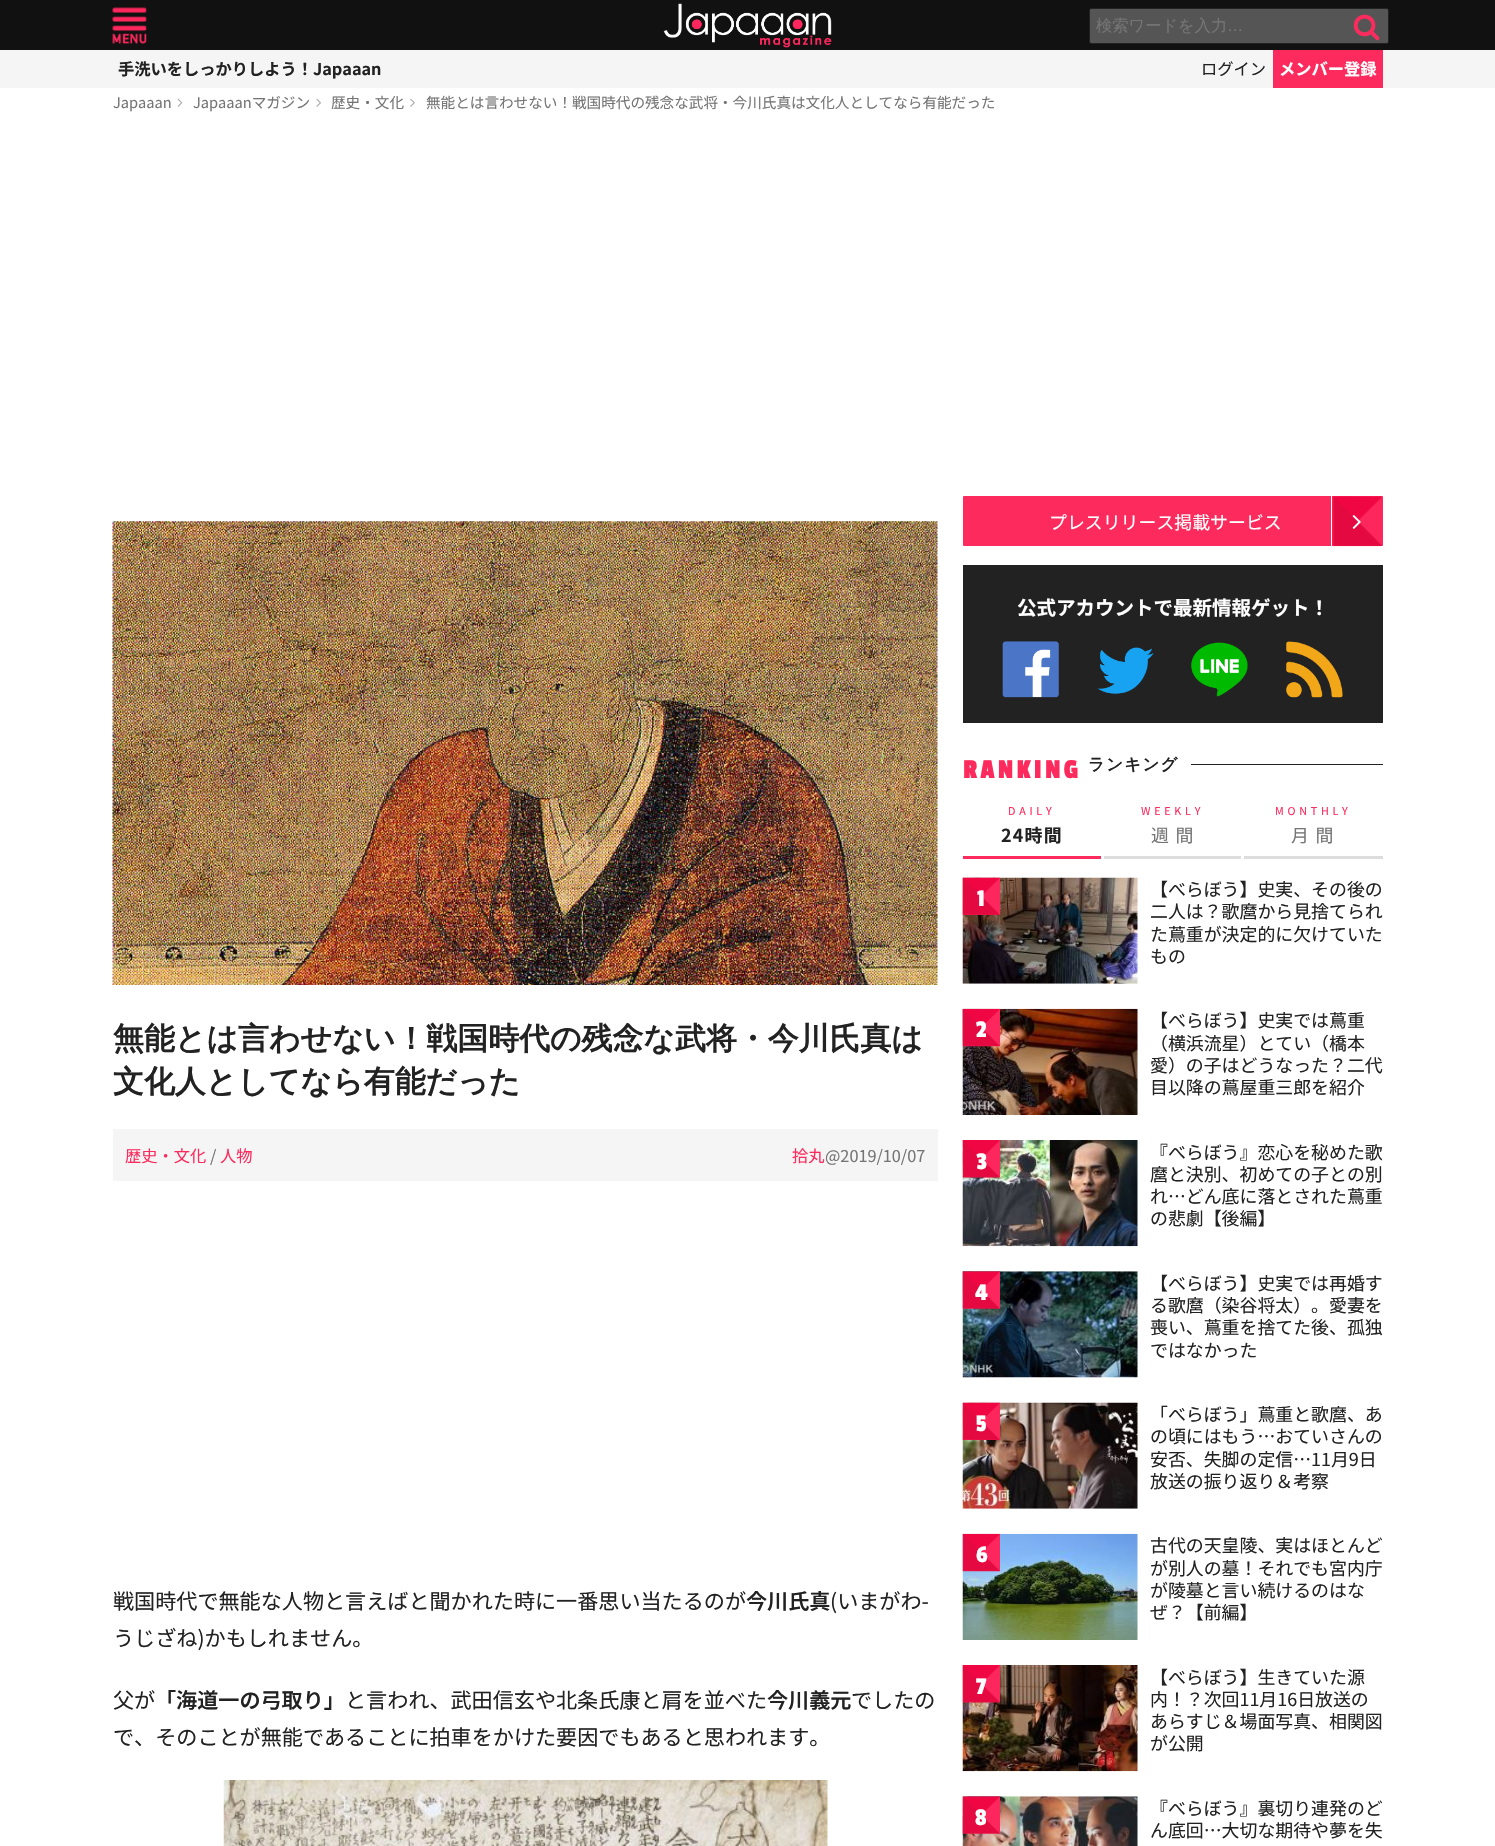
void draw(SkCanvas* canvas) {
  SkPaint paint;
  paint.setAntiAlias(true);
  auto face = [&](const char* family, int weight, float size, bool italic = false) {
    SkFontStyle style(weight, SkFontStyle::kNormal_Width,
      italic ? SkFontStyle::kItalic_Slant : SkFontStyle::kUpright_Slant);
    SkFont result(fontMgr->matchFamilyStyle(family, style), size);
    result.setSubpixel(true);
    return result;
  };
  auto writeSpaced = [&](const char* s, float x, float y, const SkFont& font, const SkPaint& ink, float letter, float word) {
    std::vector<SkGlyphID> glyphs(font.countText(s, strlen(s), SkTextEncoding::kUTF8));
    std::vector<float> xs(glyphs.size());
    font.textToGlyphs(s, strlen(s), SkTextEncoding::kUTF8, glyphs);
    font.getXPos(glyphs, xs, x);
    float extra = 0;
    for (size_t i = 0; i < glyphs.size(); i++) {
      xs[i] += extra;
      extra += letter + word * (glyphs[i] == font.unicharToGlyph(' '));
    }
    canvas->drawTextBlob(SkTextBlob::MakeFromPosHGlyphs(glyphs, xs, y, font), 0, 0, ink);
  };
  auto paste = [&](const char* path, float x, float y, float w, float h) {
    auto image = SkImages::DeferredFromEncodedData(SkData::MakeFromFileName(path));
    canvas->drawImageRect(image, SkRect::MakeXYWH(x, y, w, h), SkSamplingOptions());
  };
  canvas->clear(0xffffffff);
  paint.setColor(0xff111111);
  canvas->drawRect(SkRect::MakeXYWH(0, 0, 1495, 50), paint);
  paste("img/1.png", 112, 7, 35, 37);
  paste("img/2.png", 663, 3, 169, 45);
  paint.setColor(0xff555555);
  canvas->drawRoundRect(SkRect::MakeXYWH(1089.5f, 8.5f, 299, 35), 2, 2, paint);
  paint.setStroke(true);
  paint.setStrokeWidth(1);
  paint.setColor(0xff222222);
  canvas->drawRoundRect(SkRect::MakeXYWH(1089.5f, 8.5f, 299, 35), 2, 2, paint);
  paste("img/3.png", 1353, 14, 27, 27);
  paint.setStroke(false);
  paint.setColor(0xfff5f5f5);
  canvas->drawRect(SkRect::MakeXYWH(0, 50, 1495, 38), paint);
  paint.setColor(0xfffd2b5d);
  canvas->drawRect(SkRect::MakeXYWH(1273, 50, 110, 38), paint);
  paste("img/4.png", 177, 98, 6, 9);
  paste("img/5.png", 316, 98, 5, 9);
  paste("img/6.png", 410, 98, 5, 9);
  paste("img/7.png", 112, 521, 826, 464);
  paint.setColor(0xfff5f5f5);
  canvas->drawRect(SkRect::MakeXYWH(113, 1129, 825, 52), paint);
  paste("img/8.png", 223, 1780, 605, 66);
  paint.setColor(0xfffd2b5d);
  canvas->drawRoundRect(SkRect::MakeXYWH(963, 496, 420, 50), 1, 1, paint);
  paste("img/9.png", 1332, 496, 51, 51);
  paint.setColor(0xffffffff);
  canvas->drawRect(SkRect::MakeXYWH(1331, 496, 1, 50), paint);
  paste("img/10.png", 1352, 515, 9, 14);
  paint.setColor(0xff222222);
  canvas->drawRect(SkRect::MakeXYWH(963, 565, 420, 158), paint);
  paste("img/11.png", 1002, 641, 57, 57);
  paste("img/12.png", 1097, 647, 57, 47);
  paste("img/13.png", 1191, 642, 57, 55);
  paste("img/14.png", 1286, 641, 57, 57);
  {
    const struct { float x, y, w, h; SkColor color; } items[] = {
      {1191, 764, 192, 1, 0xff222222},
      {963, 856, 138, 3, 0xfffd2b5d},
      {1104, 856, 137, 3, 0xffdddddd},
      {1244, 856, 139, 3, 0xffdddddd},
    };
    for (auto [x, y, w, h, color] : items) {
      paint.setColor(color);
      canvas->drawRect(SkRect::MakeXYWH(x, y, w, h), paint);
    }
  }
  paste("img/15.png", 962, 877, 176, 107);
  paste("img/16.png", 962, 877, 38, 38);
  paste("img/17.png", 962, 1008, 176, 107);
  paste("img/18.png", 962, 1008, 38, 39);
  paste("img/19.png", 962, 1140, 176, 107);
  paste("img/20.png", 962, 1140, 38, 38);
  paste("img/21.png", 962, 1271, 176, 107);
  paste("img/22.png", 962, 1271, 38, 38);
  paste("img/23.png", 962, 1402, 176, 107);
  paste("img/24.png", 962, 1402, 38, 38);
  paste("img/25.png", 962, 1533, 176, 107);
  paste("img/26.png", 962, 1533, 38, 39);
  paste("img/27.png", 962, 1665, 176, 107);
  paste("img/28.png", 962, 1665, 38, 38);
  paste("img/29.png", 962, 1796, 176, 50);
  paste("img/30.png", 962, 1796, 38, 38);
  auto f0 = face("WenQuanYi Zen Hei", 500, 16.25f);
  paint.setColor(0xff757575);
  canvas->drawString("検索ワードを入力", 1096, 31, f0, paint);
  auto f1 = face("Liberation Sans", 400, 16.25f);
  canvas->drawString("…", 1227, 31, f1, paint);
  auto f2 = face("Noto Sans JP", 700, 16.25f);
  paint.setColor(0xff222222);
  canvas->drawString("手洗いをしっかりしよう！Japaaan", 118, 75, f2, paint);
  auto f3 = face("Noto Sans JP", 400, 16.25f);
  canvas->drawString("ログイン", 1201, 75, f3, paint);
  paint.setColor(0xffffffff);
  canvas->drawString("メンバー登録", 1279, 75, f2, paint);
  auto f4 = face("Noto Sans JP", 400, 14.6f);
  paint.setColor(0xff757575);
  {
    const struct { const char* s; float x, y; } items[] = {
      {"Japaaan", 113, 108},
      {"Japaaanマガジン", 193, 108},
      {"歴史・文化", 331, 108},
      {"無能とは言わせない！戦国時代の残念な武将・今川氏真は文化人としてなら有能だった", 426, 108},
    };
    for (auto [s, x, y] : items) {
      canvas->drawString(s, x, y, f4, paint);
    }
  }
  auto f5 = face("WenQuanYi Zen Hei", 700, 30.9f);
  paint.setColor(0xff222222);
  canvas->drawString("無能とは言わせない！戦国時代の残念な武将・今川氏真は", 113, 1049, f5, paint);
  canvas->drawString("文化人としてなら有能だった", 113, 1092, f5, paint);
  paint.setColor(0xfffd2b5d);
  canvas->drawString("歴史・文化", 125, 1162, f3, paint);
  paint.setColor(0xff757575);
  canvas->drawString("/", 210, 1162, f3, paint);
  paint.setColor(0xfffd2b5d);
  canvas->drawString("人物", 220, 1162, f3, paint);
  canvas->drawString("拾丸", 792, 1162, f3, paint);
  paint.setColor(0xff757575);
  canvas->drawString("@2019/10/07", 825, 1162, f3, paint);
  auto f6 = face("Noto Sans JP", 400, 21.1f);
  paint.setColor(0xff222222);
  canvas->drawString("戦国時代で無能な人物と言えばと聞かれた時に一番思い当たるのが", 113, 1609, f6, paint);
  auto f7 = face("Noto Sans JP", 600, 21.1f);
  canvas->drawString("今川氏真", 746, 1609, f7, paint);
  {
    const struct { const char* s; float x, y; } items[] = {
      {"(いまがわ-", 830, 1609},
      {"うじざね)かもしれません。", 113, 1646},
      {"父が", 113, 1708},
    };
    for (auto [s, x, y] : items) {
      canvas->drawString(s, x, y, f6, paint);
    }
  }
  canvas->drawString("「海道一の弓取り」", 155, 1708, f7, paint);
  canvas->drawString("と言われ、武田信玄や北条氏康と肩を並べた", 345, 1708, f6, paint);
  canvas->drawString("今川義元", 767, 1708, f7, paint);
  canvas->drawString("でしたの", 851, 1708, f6, paint);
  canvas->drawString("で、そのことが無能であることに拍車をかけた要因でもあると思われます。", 113, 1745, f6, paint);
  auto f8 = face("Noto Sans JP", 400, 17.9f);
  paint.setColor(0xffffffff);
  canvas->drawString("プレスリリース掲載サービス", 1049, 529, f8, paint);
  auto f9 = face("Noto Sans JP", 700, 19.5f);
  canvas->drawString("公式アカウントで最新情報ゲット！", 1017, 615, f9, paint);
  auto f10 = face("Passion One", 700, 27.5f);
  paint.setColor(0xfffd2b5d);
  writeSpaced("RANKING", 963, 778, f10, paint, 3.75f, 0);
  auto f11 = face("WenQuanYi Zen Hei", 700, 16.5f);
  paint.setColor(0xff222222);
  writeSpaced("ランキング", 1088, 770, f11, paint, 1.25f, 0);
  auto f12 = face("Noto Sans JP", 400, 10.75f);
  paint.setColor(0xfffd2b5d);
  writeSpaced("DAILY", 1008, 815, f12, paint, 3.75f, 0);
  auto f13 = face("Noto Sans JP", 700, 17.9f);
  paint.setColor(0xff222222);
  writeSpaced("24時間", 1001, 842, f13, paint, 1.25f, 0);
  paint.setColor(0xfffd2b5d);
  writeSpaced("WEEKLY", 1141, 815, f12, paint, 3.75f, 0);
  paint.setColor(0xff757575);
  writeSpaced("週 間", 1151, 842, f8, paint, 1.25f, 0);
  paint.setColor(0xfffd2b5d);
  writeSpaced("MONTHLY", 1275, 815, f12, paint, 3.75f, 0);
  paint.setColor(0xff757575);
  writeSpaced("月 間", 1291, 842, f8, paint, 1.25f, 0);
  paint.setColor(0xff222222);
  {
    const struct { const char* s; float x, y; } items[] = {
      {"【べらぼう】史実、その後の", 1150, 896},
      {"二人は？歌麿から見捨てられ", 1150, 918},
      {"た蔦重が決定的に欠けていた", 1150, 941},
      {"もの", 1150, 963},
    };
    for (auto [s, x, y] : items) {
      canvas->drawString(s, x, y, f8, paint);
    }
  }
  auto f14 = face("Passion One", 400, 25);
  paint.setColor(0xffffffff);
  canvas->drawString("1", 977, 906, f14, paint);
  paint.setColor(0xff222222);
  {
    const struct { const char* s; float x, y; } items[] = {
      {"【べらぼう】史実では蔦重", 1150, 1027},
      {"（横浜流星）とてい（橋本", 1150, 1050},
      {"愛）の子はどうなった？二代", 1150, 1072},
      {"目以降の蔦屋重三郎を紹介", 1150, 1094},
    };
    for (auto [s, x, y] : items) {
      canvas->drawString(s, x, y, f8, paint);
    }
  }
  paint.setColor(0xffffffff);
  canvas->drawString("2", 976, 1037, f14, paint);
  paint.setColor(0xff222222);
  {
    const struct { const char* s; float x, y; } items[] = {
      {"『べらぼう』恋心を秘めた歌", 1150, 1159},
      {"麿と決別、初めての子との別", 1150, 1181},
      {"れ…どん底に落とされた蔦重", 1150, 1203},
      {"の悲劇【後編】", 1150, 1225},
    };
    for (auto [s, x, y] : items) {
      canvas->drawString(s, x, y, f8, paint);
    }
  }
  paint.setColor(0xffffffff);
  canvas->drawString("3", 976, 1169, f14, paint);
  paint.setColor(0xff222222);
  {
    const struct { const char* s; float x, y; } items[] = {
      {"【べらぼう】史実では再婚す", 1150, 1290},
      {"る歌麿（染谷将太）。愛妻を", 1150, 1312},
      {"喪い、蔦重を捨てた後、孤独", 1150, 1334},
      {"ではなかった", 1150, 1357},
    };
    for (auto [s, x, y] : items) {
      canvas->drawString(s, x, y, f8, paint);
    }
  }
  paint.setColor(0xffffffff);
  canvas->drawString("4", 975, 1300, f14, paint);
  paint.setColor(0xff222222);
  {
    const struct { const char* s; float x, y; } items[] = {
      {"「べらぼう」蔦重と歌麿、あ", 1150, 1421},
      {"の頃にはもう…おていさんの", 1150, 1443},
      {"安否、失脚の定信…11月9日", 1150, 1466},
      {"放送の振り返り＆考察", 1150, 1488},
    };
    for (auto [s, x, y] : items) {
      canvas->drawString(s, x, y, f8, paint);
    }
  }
  paint.setColor(0xffffffff);
  canvas->drawString("5", 976, 1431, f14, paint);
  paint.setColor(0xff222222);
  {
    const struct { const char* s; float x, y; } items[] = {
      {"古代の天皇陵、実はほとんど", 1150, 1552},
      {"が別人の墓！それでも宮内庁", 1150, 1575},
      {"が陵墓と言い続けるのはな", 1150, 1597},
      {"ぜ？【前編】", 1150, 1619},
    };
    for (auto [s, x, y] : items) {
      canvas->drawString(s, x, y, f8, paint);
    }
  }
  paint.setColor(0xffffffff);
  canvas->drawString("6", 976, 1562, f14, paint);
  paint.setColor(0xff222222);
  {
    const struct { const char* s; float x, y; } items[] = {
      {"【べらぼう】生きていた源", 1150, 1684},
      {"内！？次回11月16日放送の", 1150, 1706},
      {"あらすじ＆場面写真、相関図", 1150, 1728},
      {"が公開", 1150, 1750},
    };
    for (auto [s, x, y] : items) {
      canvas->drawString(s, x, y, f8, paint);
    }
  }
  paint.setColor(0xffffffff);
  canvas->drawString("7", 976, 1694, f14, paint);
  paint.setColor(0xff222222);
  canvas->drawString("『べらぼう』裏切り連発のど", 1150, 1815, f8, paint);
  canvas->drawString("ん底回…大切な期待や夢を失", 1150, 1837, f8, paint);
  paint.setColor(0xffffffff);
  canvas->drawString("8", 975, 1825, f14, paint);
}
